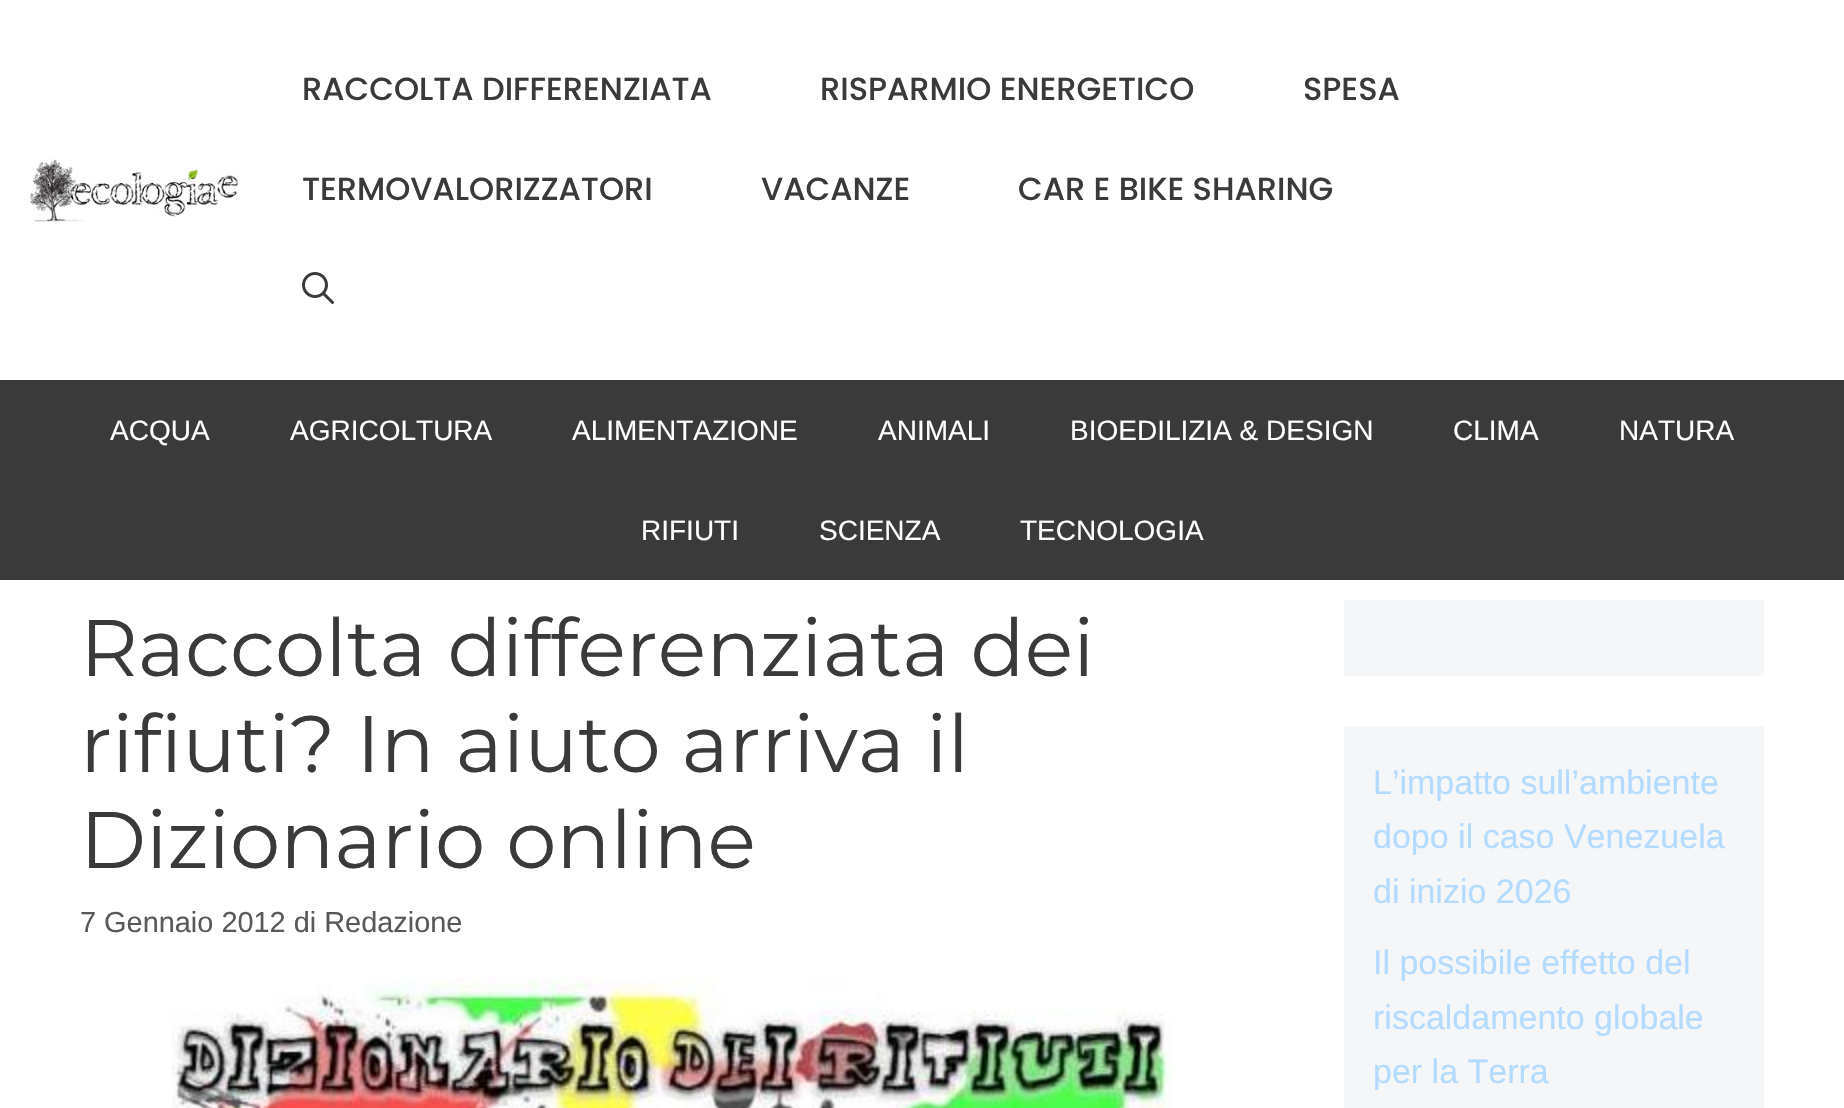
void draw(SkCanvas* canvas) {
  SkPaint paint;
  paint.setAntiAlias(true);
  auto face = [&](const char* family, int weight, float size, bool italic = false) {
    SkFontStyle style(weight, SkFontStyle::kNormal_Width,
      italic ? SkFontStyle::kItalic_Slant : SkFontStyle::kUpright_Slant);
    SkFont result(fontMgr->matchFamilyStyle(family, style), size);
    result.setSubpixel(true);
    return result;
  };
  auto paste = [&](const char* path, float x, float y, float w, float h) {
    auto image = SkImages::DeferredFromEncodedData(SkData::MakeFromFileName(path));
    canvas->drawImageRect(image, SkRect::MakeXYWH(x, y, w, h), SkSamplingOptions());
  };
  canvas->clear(0xff3a3a3a);
  paint.setColor(0xffffffff);
  canvas->drawRect(SkRect::MakeXYWH(0, 0, 1844, 380), paint);
  paste("img/1.png", 30, 159, 208, 63);
  paste("img/2.png", 302, 272, 32, 32);
  canvas->drawRect(SkRect::MakeXYWH(0, 580, 1844, 528), paint);
  paste("img/3.png", 172, 977, 1000, 131);
  paint.setColor(0xfff4f6f7);
  canvas->drawRect(SkRect::MakeXYWH(1344, 600, 420, 76), paint);
  canvas->drawRect(SkRect::MakeXYWH(1344, 726, 420, 382), paint);
  auto f0 = face("Poppins", 500, 32);
  paint.setColor(0xff3a3a3a);
  {
    const struct { const char* s; float x, y; } items[] = {
      {"RACCOLTA DIFFERENZIATA", 302, 100},
      {"RISPARMIO ENERGETICO", 820, 100},
      {"SPESA", 1303, 100},
      {"TERMOVALORIZZATORI", 302, 200},
      {"VACANZE", 761, 200},
      {"CAR E BIKE SHARING", 1018, 200},
    };
    for (auto [s, x, y] : items) {
      canvas->drawString(s, x, y, f0, paint);
    }
  }
  auto f1 = face("Liberation Sans", 400, 28);
  paint.setColor(0xffffffff);
  {
    const struct { const char* s; float x, y; } items[] = {
      {"ACQUA", 110, 440},
      {"AGRICOLTURA", 290, 440},
      {"ALIMENTAZIONE", 572, 440},
      {"ANIMALI", 878, 440},
      {"BIOEDILIZIA & DESIGN", 1070, 440},
      {"CLIMA", 1453, 440},
      {"NATURA", 1619, 440},
      {"RIFIUTI", 641, 540},
      {"SCIENZA", 819, 540},
      {"TECNOLOGIA", 1020, 540},
    };
    for (auto [s, x, y] : items) {
      canvas->drawString(s, x, y, f1, paint);
    }
  }
  auto f2 = face("Montserrat", 400, 80);
  paint.setColor(0xff3a3a3a);
  {
    const struct { const char* s; float x, y; } items[] = {
      {"Raccolta differenziata dei", 80, 676},
      {"rifiuti? In aiuto arriva il", 80, 772},
      {"Dizionario online", 80, 868},
    };
    for (auto [s, x, y] : items) {
      canvas->drawString(s, x, y, f2, paint);
    }
  }
  auto f3 = face("Liberation Sans", 400, 28.9f);
  paint.setColor(0xff595959);
  canvas->drawString("7 Gennaio 2012 di Redazione", 80, 932, f3, paint);
  auto f4 = face("Liberation Sans", 400, 34);
  paint.setColor(0xffb2dbff);
  {
    const struct { const char* s; float x, y; } items[] = {
      {"L’impatto sull’ambiente", 1373, 794},
      {"dopo il caso Venezuela", 1373, 848},
      {"di inizio 2026", 1373, 903},
      {"Il possibile effetto del", 1373, 974},
      {"riscaldamento globale", 1373, 1029},
      {"per la Terra", 1373, 1083},
    };
    for (auto [s, x, y] : items) {
      canvas->drawString(s, x, y, f4, paint);
    }
  }
}
